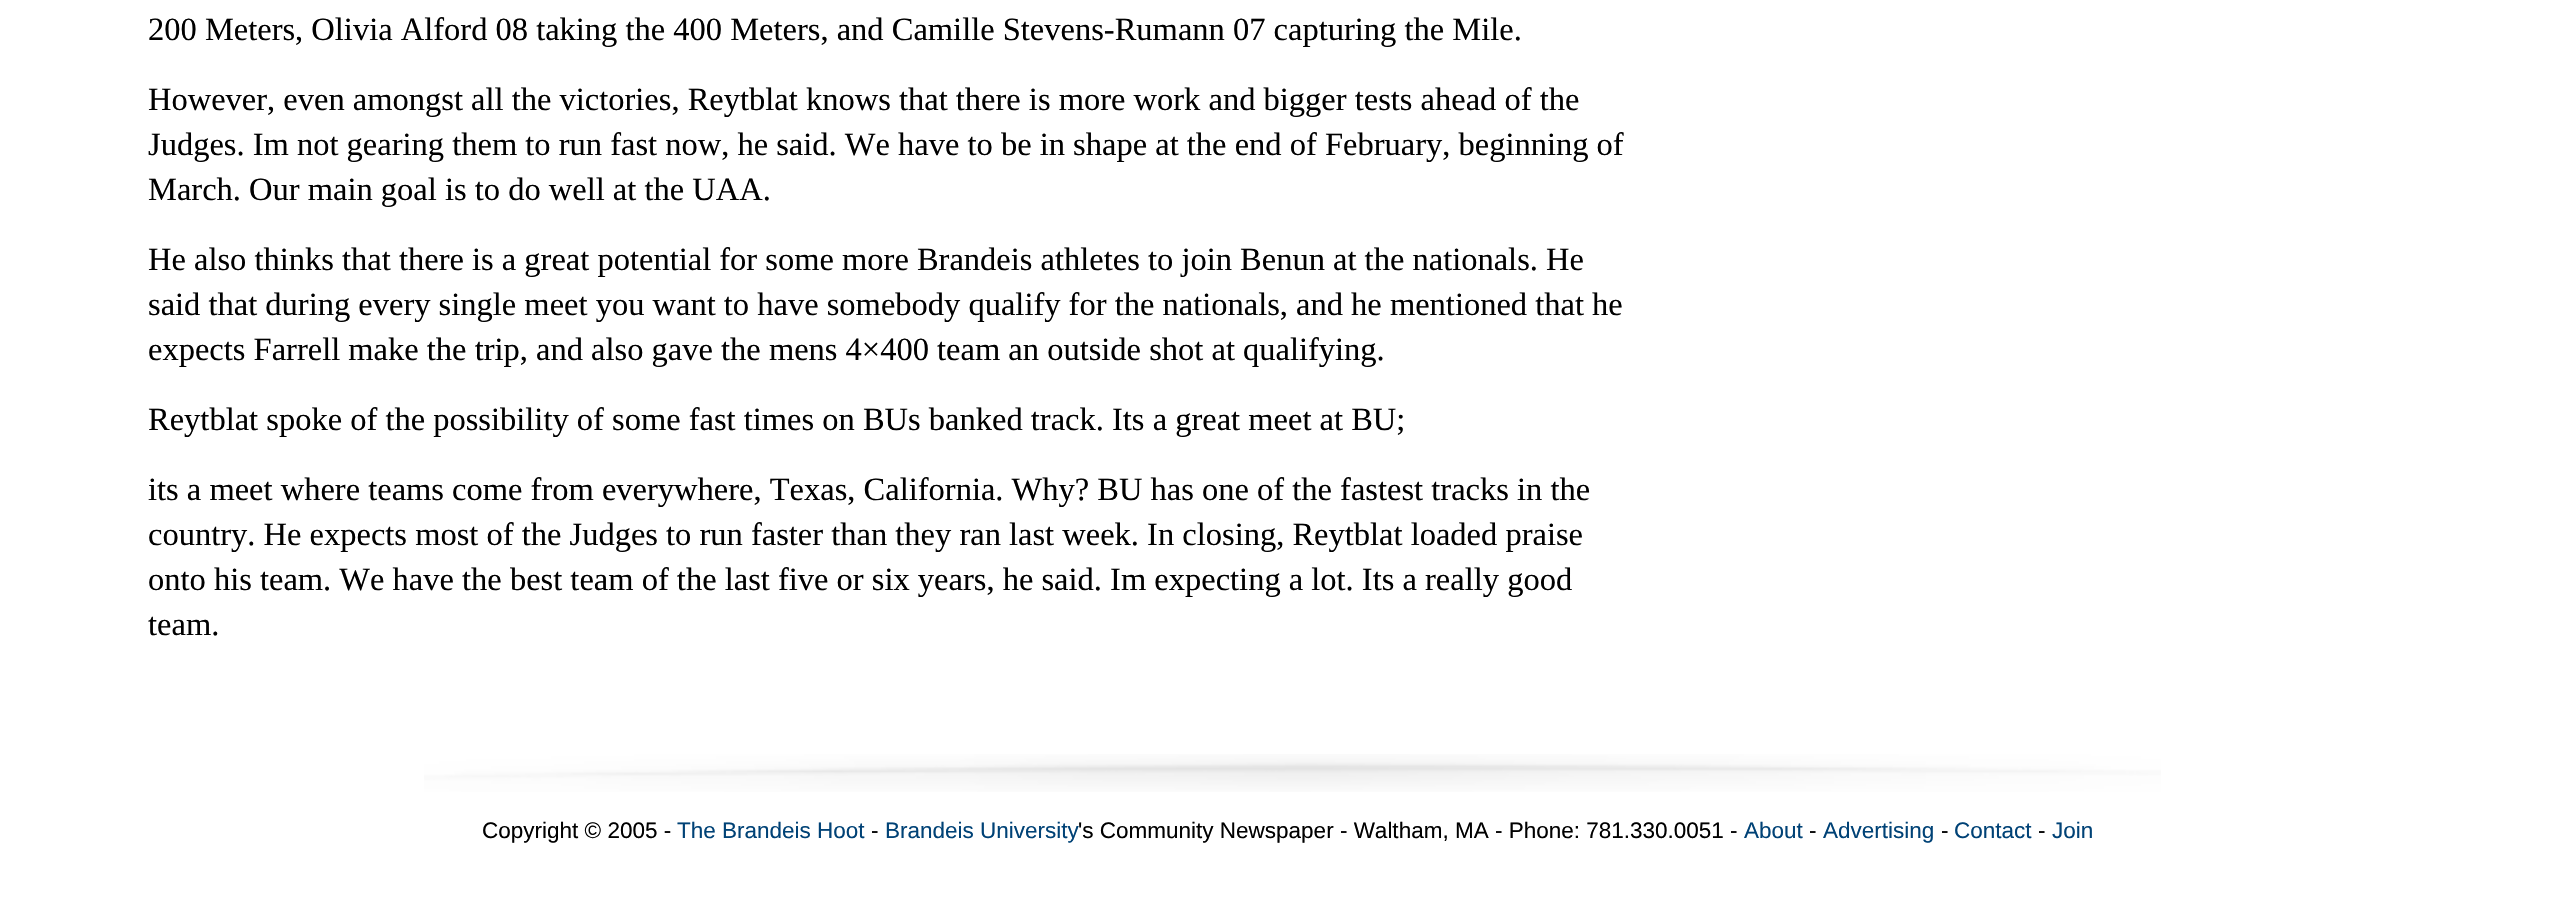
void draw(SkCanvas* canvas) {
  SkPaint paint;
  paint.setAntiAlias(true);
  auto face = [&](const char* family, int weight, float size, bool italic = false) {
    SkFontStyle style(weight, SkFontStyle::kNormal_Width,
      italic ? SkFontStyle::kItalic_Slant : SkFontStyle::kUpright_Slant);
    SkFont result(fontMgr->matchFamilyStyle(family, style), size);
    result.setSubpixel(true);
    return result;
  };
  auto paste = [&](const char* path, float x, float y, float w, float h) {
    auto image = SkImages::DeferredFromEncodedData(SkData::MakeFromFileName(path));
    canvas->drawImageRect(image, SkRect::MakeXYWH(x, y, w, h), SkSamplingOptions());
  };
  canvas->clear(0xffffffff);
  paste("img/1.png", 424, 754, 1737, 38);
  auto f0 = face("Liberation Serif", 400, 32.5f);
  paint.setColor(0xff000000);
  {
    const struct { const char* s; float x, y; } items[] = {
      {"200 Meters, Olivia Alford 08 taking the 400 Meters, and Camille Stevens-Rumann 07 capturing the Mile.", 148, 40},
      {"However, even amongst all the victories, Reytblat knows that there is more work and bigger tests ahead of the", 148, 110},
      {"Judges. Im not gearing them to run fast now, he said. We have to be in shape at the end of February, beginning of", 148, 155},
      {"March. Our main goal is to do well at the UAA.", 148, 200},
      {"He also thinks that there is a great potential for some more Brandeis athletes to join Benun at the nationals. He", 148, 270},
      {"said that during every single meet you want to have somebody qualify for the nationals, and he mentioned that he", 148, 315},
      {"expects Farrell make the trip, and also gave the mens 4×400 team an outside shot at qualifying.", 148, 360},
      {"Reytblat spoke of the possibility of some fast times on BUs banked track. Its a great meet at BU;", 148, 430},
      {"its a meet where teams come from everywhere, Texas, California. Why? BU has one of the fastest tracks in the", 148, 500},
      {"country. He expects most of the Judges to run faster than they ran last week. In closing, Reytblat loaded praise", 148, 545},
      {"onto his team. We have the best team of the last five or six years, he said. Im expecting a lot. Its a really good", 148, 590},
      {"team.", 148, 635},
    };
    for (auto [s, x, y] : items) {
      canvas->drawString(s, x, y, f0, paint);
    }
  }
  auto f1 = face("Liberation Sans", 400, 22.5f);
  canvas->drawString("Copyright © 2005 -", 482, 838, f1, paint);
  paint.setColor(0xff004276);
  canvas->drawString("The Brandeis Hoot", 677, 838, f1, paint);
  paint.setColor(0xff000000);
  canvas->drawString("-", 871, 838, f1, paint);
  paint.setColor(0xff004276);
  canvas->drawString("Brandeis University", 885, 838, f1, paint);
  paint.setColor(0xff000000);
  canvas->drawString("'s Community Newspaper - Waltham, MA - Phone: 781.330.0051 -", 1078, 838, f1, paint);
  paint.setColor(0xff004276);
  canvas->drawString("About", 1744, 838, f1, paint);
  paint.setColor(0xff000000);
  canvas->drawString("-", 1809, 838, f1, paint);
  paint.setColor(0xff004276);
  canvas->drawString("Advertising", 1823, 838, f1, paint);
  paint.setColor(0xff000000);
  canvas->drawString("-", 1941, 838, f1, paint);
  paint.setColor(0xff004276);
  canvas->drawString("Contact", 1954, 838, f1, paint);
  paint.setColor(0xff000000);
  canvas->drawString("-", 2038, 838, f1, paint);
  paint.setColor(0xff004276);
  canvas->drawString("Join", 2052, 838, f1, paint);
}
